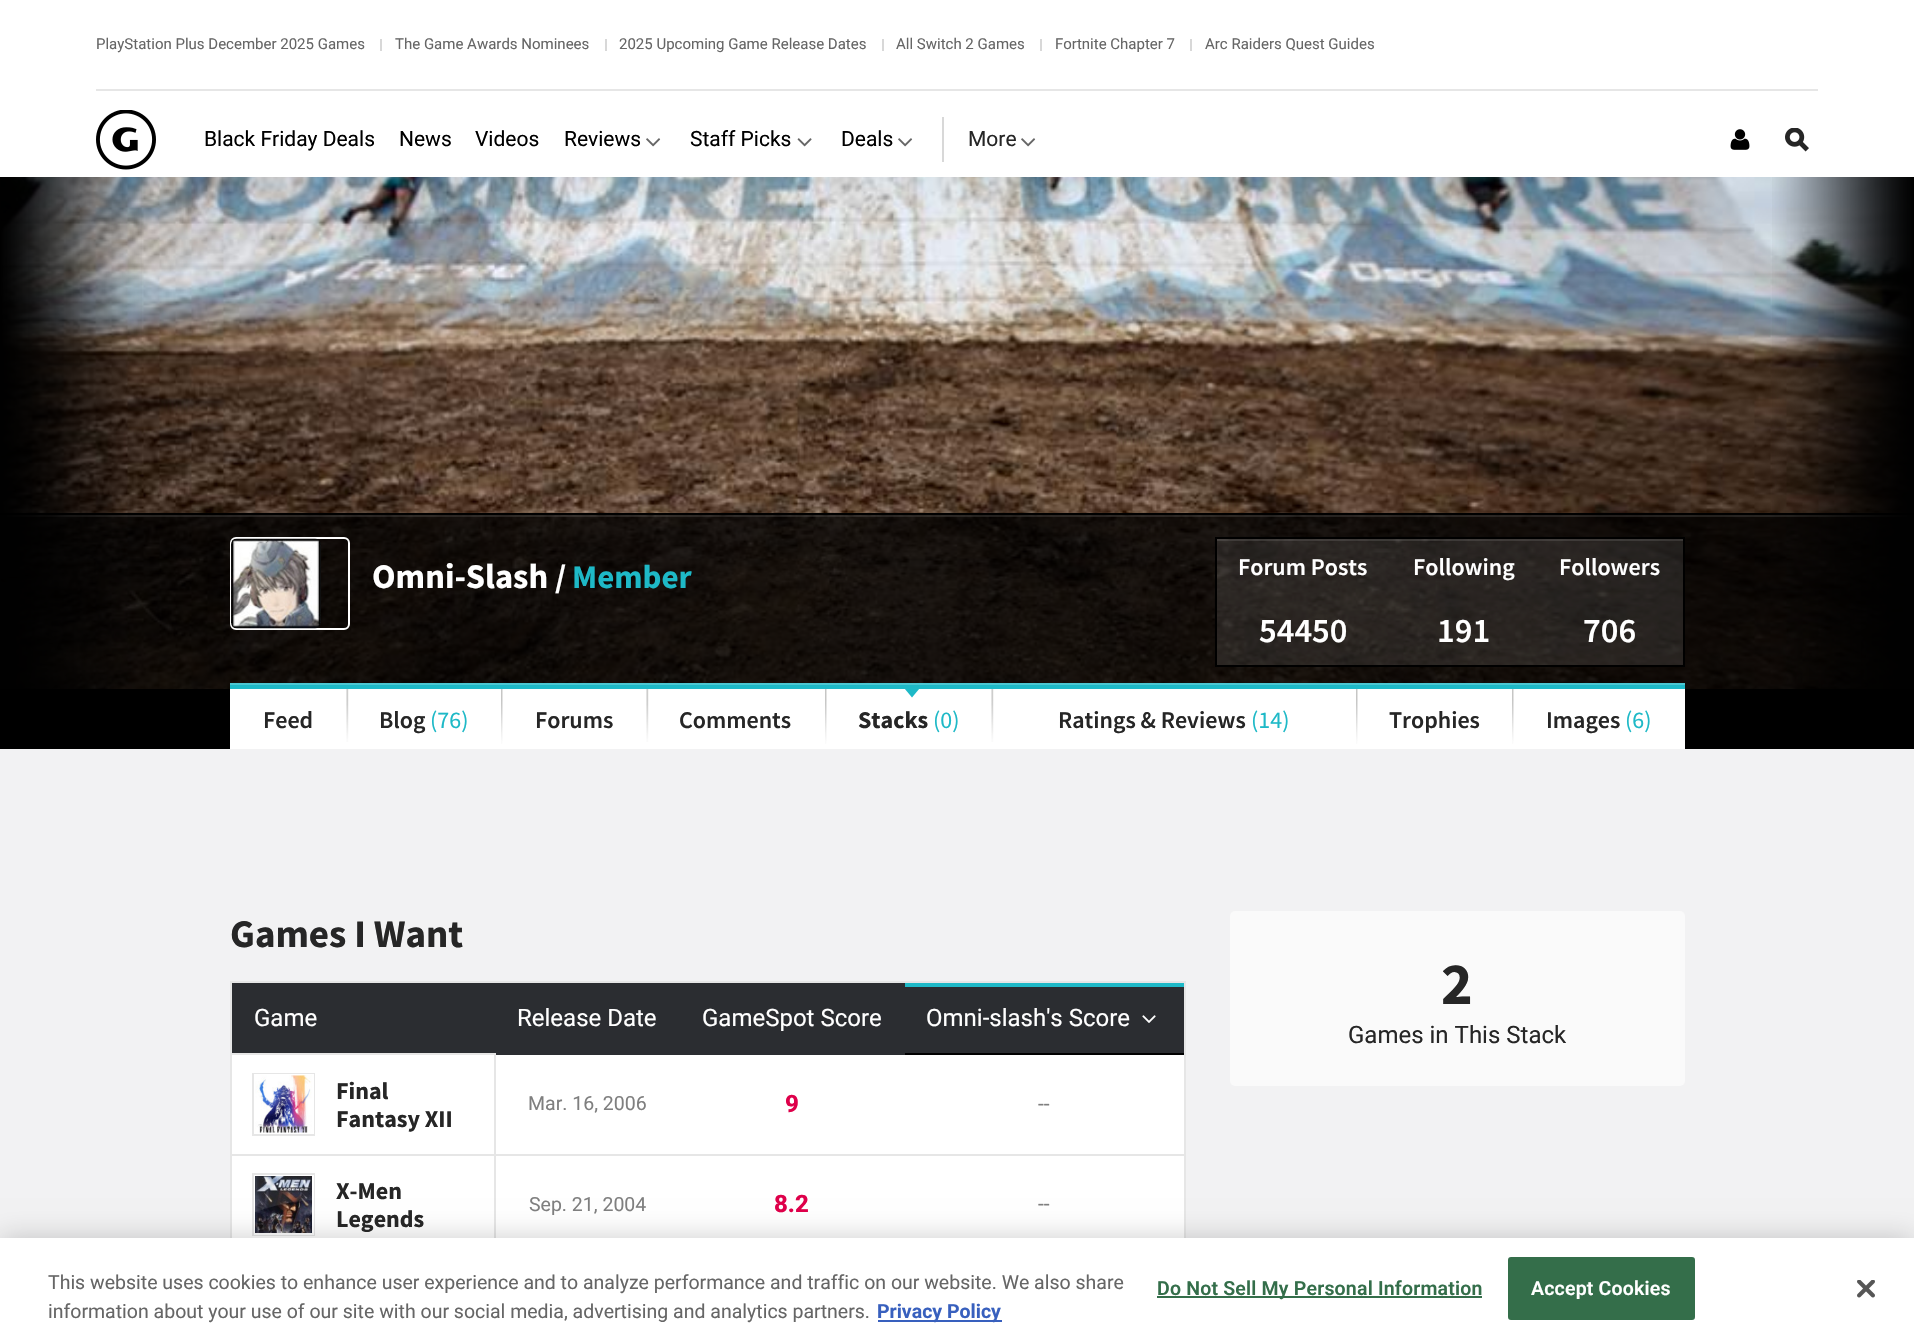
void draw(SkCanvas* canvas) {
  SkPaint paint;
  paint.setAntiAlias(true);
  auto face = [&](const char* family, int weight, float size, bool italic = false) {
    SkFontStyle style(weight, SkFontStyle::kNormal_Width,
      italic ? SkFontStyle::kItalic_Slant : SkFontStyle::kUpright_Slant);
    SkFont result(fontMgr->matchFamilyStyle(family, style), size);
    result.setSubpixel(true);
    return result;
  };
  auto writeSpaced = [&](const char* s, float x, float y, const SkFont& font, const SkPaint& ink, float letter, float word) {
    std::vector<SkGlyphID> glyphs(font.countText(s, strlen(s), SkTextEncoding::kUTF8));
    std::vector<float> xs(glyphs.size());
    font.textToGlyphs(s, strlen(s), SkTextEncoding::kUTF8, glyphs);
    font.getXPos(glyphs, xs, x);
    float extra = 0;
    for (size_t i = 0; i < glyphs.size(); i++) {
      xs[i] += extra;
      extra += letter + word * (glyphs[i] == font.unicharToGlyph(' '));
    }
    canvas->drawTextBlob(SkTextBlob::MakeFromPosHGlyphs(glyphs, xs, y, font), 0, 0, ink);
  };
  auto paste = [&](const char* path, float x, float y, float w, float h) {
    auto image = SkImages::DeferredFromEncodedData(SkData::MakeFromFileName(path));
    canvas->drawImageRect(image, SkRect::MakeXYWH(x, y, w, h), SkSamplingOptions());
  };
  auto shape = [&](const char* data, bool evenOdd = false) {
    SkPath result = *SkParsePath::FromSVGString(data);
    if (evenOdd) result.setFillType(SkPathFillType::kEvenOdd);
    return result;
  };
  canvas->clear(0xfff2f2f3);
  {
    const struct { float x, y, w, h; SkColor color; } items[] = {
      {0, 0, 1914, 177, 0xffffffff},
      {96, 89, 1722, 2, 0xffe6e6e6},
      {380, 39, 2, 12, 0xffd8d8d8},
      {605, 39, 2, 12, 0xffd8d8d8},
      {882, 39, 2, 12, 0xffd8d8d8},
      {1040, 39, 2, 12, 0xffd8d8d8},
      {1190, 39, 2, 12, 0xffd8d8d8},
    };
    for (auto [x, y, w, h, color] : items) {
      paint.setColor(color);
      canvas->drawRect(SkRect::MakeXYWH(x, y, w, h), paint);
    }
  }
  paste("img/1.png", 96, 110, 60, 60);
  paste("img/2.png", 646, 138, 15, 9);
  paste("img/3.png", 797, 138, 15, 9);
  paste("img/2.png", 898, 138, 15, 9);
  canvas->drawRect(SkRect::MakeXYWH(942, 117, 2, 45), paint);
  paste("img/2.png", 1021, 138, 15, 9);
  paste("img/4.png", 1730, 129, 20, 21);
  paste("img/5.png", 1785, 128, 24, 24);
  paste("img/6.png", 1, 177, 1912, 512);
  {
    const struct { float x, y, w, h; SkColor color; } items[] = {
      {1, 515, 1912, 174, 0xcc000000},
      {0, 515, 1914, 2, 0x1affffff},
      {0, 513, 1914, 2, 0xff000000},
    };
    for (auto [x, y, w, h, color] : items) {
      paint.setColor(color);
      canvas->drawRect(SkRect::MakeXYWH(x, y, w, h), paint);
    }
  }
  paste("img/10.png", 1, 688, 35, 1);
  paste("img/7.png", 0, 177, 142, 512);
  paint.setStroke(true);
  paint.setStrokeWidth(2);
  paint.setColor(0xffffffff);
  canvas->drawRoundRect(SkRect::MakeXYWH(231, 538, 118, 91), 5, 5, paint);
  paste("img/8.png", 231, 538, 90, 91);
  paint.setStroke(false);
  {
    const struct { float x, y, w, h; SkColor color; } items[] = {
      {1217, 539, 466, 126, 0x1affffff},
      {1217, 539, 466, 2, 0x1affffff},
      {1215, 537, 470, 2, 0xff000000},
      {1683, 537, 2, 129, 0xff000000},
      {1215, 665, 470, 2, 0xff000000},
      {1215, 537, 2, 129, 0xff000000},
    };
    for (auto [x, y, w, h, color] : items) {
      paint.setColor(color);
      canvas->drawRect(SkRect::MakeXYWH(x, y, w, h), paint);
    }
  }
  paste("img/9.png", 1772, 177, 142, 512);
  {
    const struct { float x, y, w, h; SkColor color; } items[] = {
      {0, 689, 1914, 60, 0xff000000},
      {230, 689, 1455, 60, 0xffffffff},
      {230, 685, 1455, 4, 0xff1eb9c7},
      {230, 683, 1455, 2, 0xff4bc7d2},
    };
    for (auto [x, y, w, h, color] : items) {
      paint.setColor(color);
      canvas->drawRect(SkRect::MakeXYWH(x, y, w, h), paint);
    }
  }
  paste("img/11.png", 346, 689, 3, 53);
  paste("img/12.png", 501, 689, 2, 55);
  paste("img/11.png", 646, 689, 3, 53);
  paste("img/12.png", 825, 689, 2, 55);
  paint.setColor(0xff1eb9c7);
  canvas->drawPath(shape("M904.5 688.5H919.5L912 697.5Z"), paint);
  paste("img/11.png", 991, 689, 3, 53);
  paste("img/12.png", 1356, 689, 2, 55);
  paste("img/12.png", 1512, 689, 2, 55);
  {
    const struct { float x, y, w, h; SkColor color; } items[] = {
      {232, 1055, 952, 183, 0xffffffff},
      {230, 981, 955, 2, 0xffe6e6e6},
      {1184, 981, 2, 257, 0xffe6e6e6},
      {230, 981, 2, 257, 0xffe6e6e6},
      {232, 983, 263, 70, 0xff2b2d31},
      {495, 983, 410, 72, 0xff2b2d31},
      {905, 987, 279, 66, 0xff2b2d31},
      {905, 1053, 279, 2, 0xff000000},
      {905, 983, 279, 4, 0xff1eb9c7},
    };
    for (auto [x, y, w, h, color] : items) {
      paint.setColor(color);
      canvas->drawRect(SkRect::MakeXYWH(x, y, w, h), paint);
    }
  }
  paste("img/13.png", 1142, 1015, 14, 8);
  {
    const struct { float x, y, w, h; SkColor color; } items[] = {
      {230, 1053, 265, 2, 0xffe6e6e6},
      {230, 1154, 265, 2, 0xffe6e6e6},
      {494, 1154, 2, 84, 0xffe6e6e6},
      {494, 1154, 691, 2, 0xffe6e6e6},
      {494, 1053, 2, 102, 0xffe6e6e6},
    };
    for (auto [x, y, w, h, color] : items) {
      paint.setColor(color);
      canvas->drawRect(SkRect::MakeXYWH(x, y, w, h), paint);
    }
  }
  paint.setStroke(true);
  canvas->drawRect(SkRect::MakeXYWH(253, 1074, 61, 61), paint);
  paint.setColor(0xffffffff);
  canvas->drawRect(SkRect::MakeXYWH(255, 1075, 58, 58), paint);
  paste("img/14.png", 255, 1075, 57, 58);
  paste("img/15.png", 259, 1075, 50, 32);
  paint.setColor(0xffe6e6e6);
  canvas->drawRect(SkRect::MakeXYWH(253, 1174, 61, 61), paint);
  paint.setColor(0xffffffff);
  canvas->drawRect(SkRect::MakeXYWH(255, 1176, 58, 58), paint);
  paste("img/16.png", 255, 1176, 57, 57);
  paste("img/17.png", 255, 1176, 57, 36);
  paint.setStroke(false);
  paint.setColor(0xfffafafa);
  canvas->drawRoundRect(SkRect::MakeXYWH(1230, 911, 455, 175), 5, 5, paint);
  paint.setColor(0x33000000);
  paint.setMaskFilter(SkMaskFilter::MakeBlur(kNormal_SkBlurStyle, 13.5f));
  canvas->drawRect(SkRect::MakeXYWH(0, 1238, 1914, 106), paint);
  paint.setMaskFilter(nullptr);
  {
    const struct { float x, y, w, h; SkColor color; } items[] = {
      {0, 1238, 1914, 105, 0xffffffff},
      {878, 1320, 124, 2, 0xff3860be},
      {1157, 1296, 325, 2, 0xff346e4a},
    };
    for (auto [x, y, w, h, color] : items) {
      paint.setColor(color);
      canvas->drawRect(SkRect::MakeXYWH(x, y, w, h), paint);
    }
  }
  canvas->drawRoundRect(SkRect::MakeXYWH(1509, 1258, 185, 61), 2, 2, paint);
  paint.setStroke(true);
  canvas->drawRoundRect(SkRect::MakeXYWH(1509, 1258, 185, 61), 2, 2, paint);
  paste("img/18.png", 1857, 1280, 18, 18);
  auto f0 = face("Roboto", 400, 15);
  paint.setStroke(false);
  paint.setColor(0xff666666);
  {
    const struct { const char* s; float x, y; } items[] = {
      {"PlayStation Plus December 2025 Games", 96, 49},
      {"The Game Awards Nominees", 395, 49},
      {"2025 Upcoming Game Release Dates", 619, 49},
      {"All Switch 2 Games", 896, 49},
      {"Fortnite Chapter 7", 1055, 49},
      {"Arc Raiders Quest Guides", 1205, 49},
    };
    for (auto [s, x, y] : items) {
      canvas->drawString(s, x, y, f0, paint);
    }
  }
  auto f1 = face("Roboto", 400, 21);
  paint.setColor(0xff000000);
  {
    const struct { const char* s; float x, y; } items[] = {
      {"Black Friday Deals", 204, 146},
      {"News", 399, 146},
      {"Videos", 475, 146},
      {"Reviews", 564, 146},
      {"Staff Picks", 690, 146},
      {"Deals", 841, 146},
    };
    for (auto [s, x, y] : items) {
      canvas->drawString(s, x, y, f1, paint);
    }
  }
  paint.setColor(0xff262626);
  canvas->drawString("More", 968, 146, f1, paint);
  auto f2 = face("Source Sans Pro", 700, 34.5f);
  paint.setColor(0xffffffff);
  canvas->drawString("Omni-Slash", 372, 588, f2, paint);
  auto f3 = face("Source Sans Pro", 700, 33);
  canvas->drawString("/", 555, 588, f3, paint);
  paint.setColor(0xff1eb9c7);
  canvas->drawString("Member", 572, 588, f3, paint);
  auto f4 = face("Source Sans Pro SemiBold", 600, 24);
  paint.setColor(0xffffffff);
  {
    const struct { const char* s; float x, y; } items[] = {
      {"Forum Posts", 1238, 575},
      {"Following", 1413, 575},
      {"Followers", 1559, 575},
    };
    for (auto [s, x, y] : items) {
      canvas->drawString(s, x, y, f4, paint);
    }
  }
  auto f5 = face("Source Sans Pro SemiBold", 600, 34.5f);
  {
    const struct { const char* s; float x, y; } items[] = {
      {"54450", 1259, 642},
      {"191", 1437, 642},
      {"706", 1583, 642},
    };
    for (auto [s, x, y] : items) {
      canvas->drawString(s, x, y, f5, paint);
    }
  }
  paint.setColor(0xff262626);
  canvas->drawString("Feed", 263, 728, f4, paint);
  canvas->drawString("Blog", 379, 728, f4, paint);
  auto f6 = face("Source Sans Pro", 400, 24);
  paint.setColor(0xff1eb9c7);
  canvas->drawString("(76)", 430, 728, f6, paint);
  paint.setColor(0xff262626);
  canvas->drawString("Forums", 535, 728, f4, paint);
  canvas->drawString("Comments", 679, 728, f4, paint);
  auto f7 = face("Source Sans Pro", 700, 24);
  canvas->drawString("Stacks", 858, 728, f7, paint);
  paint.setColor(0xff1eb9c7);
  canvas->drawString("(0)", 933, 728, f6, paint);
  paint.setColor(0xff262626);
  canvas->drawString("Ratings & Reviews", 1058, 728, f4, paint);
  paint.setColor(0xff1eb9c7);
  canvas->drawString("(14)", 1251, 728, f6, paint);
  paint.setColor(0xff262626);
  canvas->drawString("Trophies", 1389, 728, f4, paint);
  canvas->drawString("Images", 1546, 728, f4, paint);
  paint.setColor(0xff1eb9c7);
  canvas->drawString("(6)", 1625, 728, f6, paint);
  auto f8 = face("Source Sans Pro", 700, 39);
  paint.setColor(0xff262626);
  canvas->drawString("Games I Want", 230, 947, f8, paint);
  auto f9 = face("Roboto", 400, 24);
  paint.setColor(0xffffffff);
  {
    const struct { const char* s; float x, y; } items[] = {
      {"Game", 254, 1026},
      {"Release Date", 517, 1026},
      {"GameSpot Score", 702, 1026},
      {"Omni-slash's Score", 926, 1026},
    };
    for (auto [s, x, y] : items) {
      canvas->drawString(s, x, y, f9, paint);
    }
  }
  paint.setColor(0xff262626);
  canvas->drawString("Final", 336, 1099, f7, paint);
  canvas->drawString("Fantasy XII", 336, 1127, f7, paint);
  auto f10 = face("Roboto", 400, 19.5f);
  paint.setColor(0xff7f7f7f);
  canvas->drawString("Mar. 16, 2006", 528, 1110, f10, paint);
  auto f11 = face("Roboto", 800, 24);
  paint.setColor(0xffde004a);
  canvas->drawString("9", 785, 1112, f11, paint);
  paint.setColor(0xff7f7f7f);
  canvas->drawString("--", 1038, 1111, f1, paint);
  paint.setColor(0xff262626);
  canvas->drawString("X-Men", 336, 1199, f7, paint);
  canvas->drawString("Legends", 336, 1227, f7, paint);
  paint.setColor(0xff7f7f7f);
  canvas->drawString("Sep. 21, 2004", 529, 1211, f10, paint);
  paint.setColor(0xffde004a);
  canvas->drawString("8.2", 774, 1212, f11, paint);
  paint.setColor(0xff7f7f7f);
  canvas->drawString("--", 1038, 1211, f1, paint);
  auto f12 = face("Source Sans Pro", 700, 60);
  paint.setColor(0xff262626);
  canvas->drawString("2", 1441, 1004, f12, paint);
  canvas->drawString("Games in This Stack", 1348, 1043, f9, paint);
  paint.setColor(0xff666666);
  canvas->drawString("This website uses cookies to enhance user experience and to analyze performance and traffic on our website. We also share", 48, 1289, f10, paint);
  canvas->drawString("information about your use of our site with our social media, advertising and analytics partners.", 48, 1318, f10, paint);
  auto f13 = face("Roboto", 700, 19.5f);
  paint.setColor(0xff3860be);
  canvas->drawString("Privacy Policy", 877, 1318, f13, paint);
  auto f14 = face("Roboto", 600, 19.5f);
  paint.setColor(0xff346e4a);
  writeSpaced("Do Not Sell My Personal Information", 1157, 1295, f14, paint, 0.2f, 0);
  paint.setColor(0xffffffff);
  writeSpaced("Accept Cookies", 1531, 1295, f14, paint, 0.2f, 0);
}
